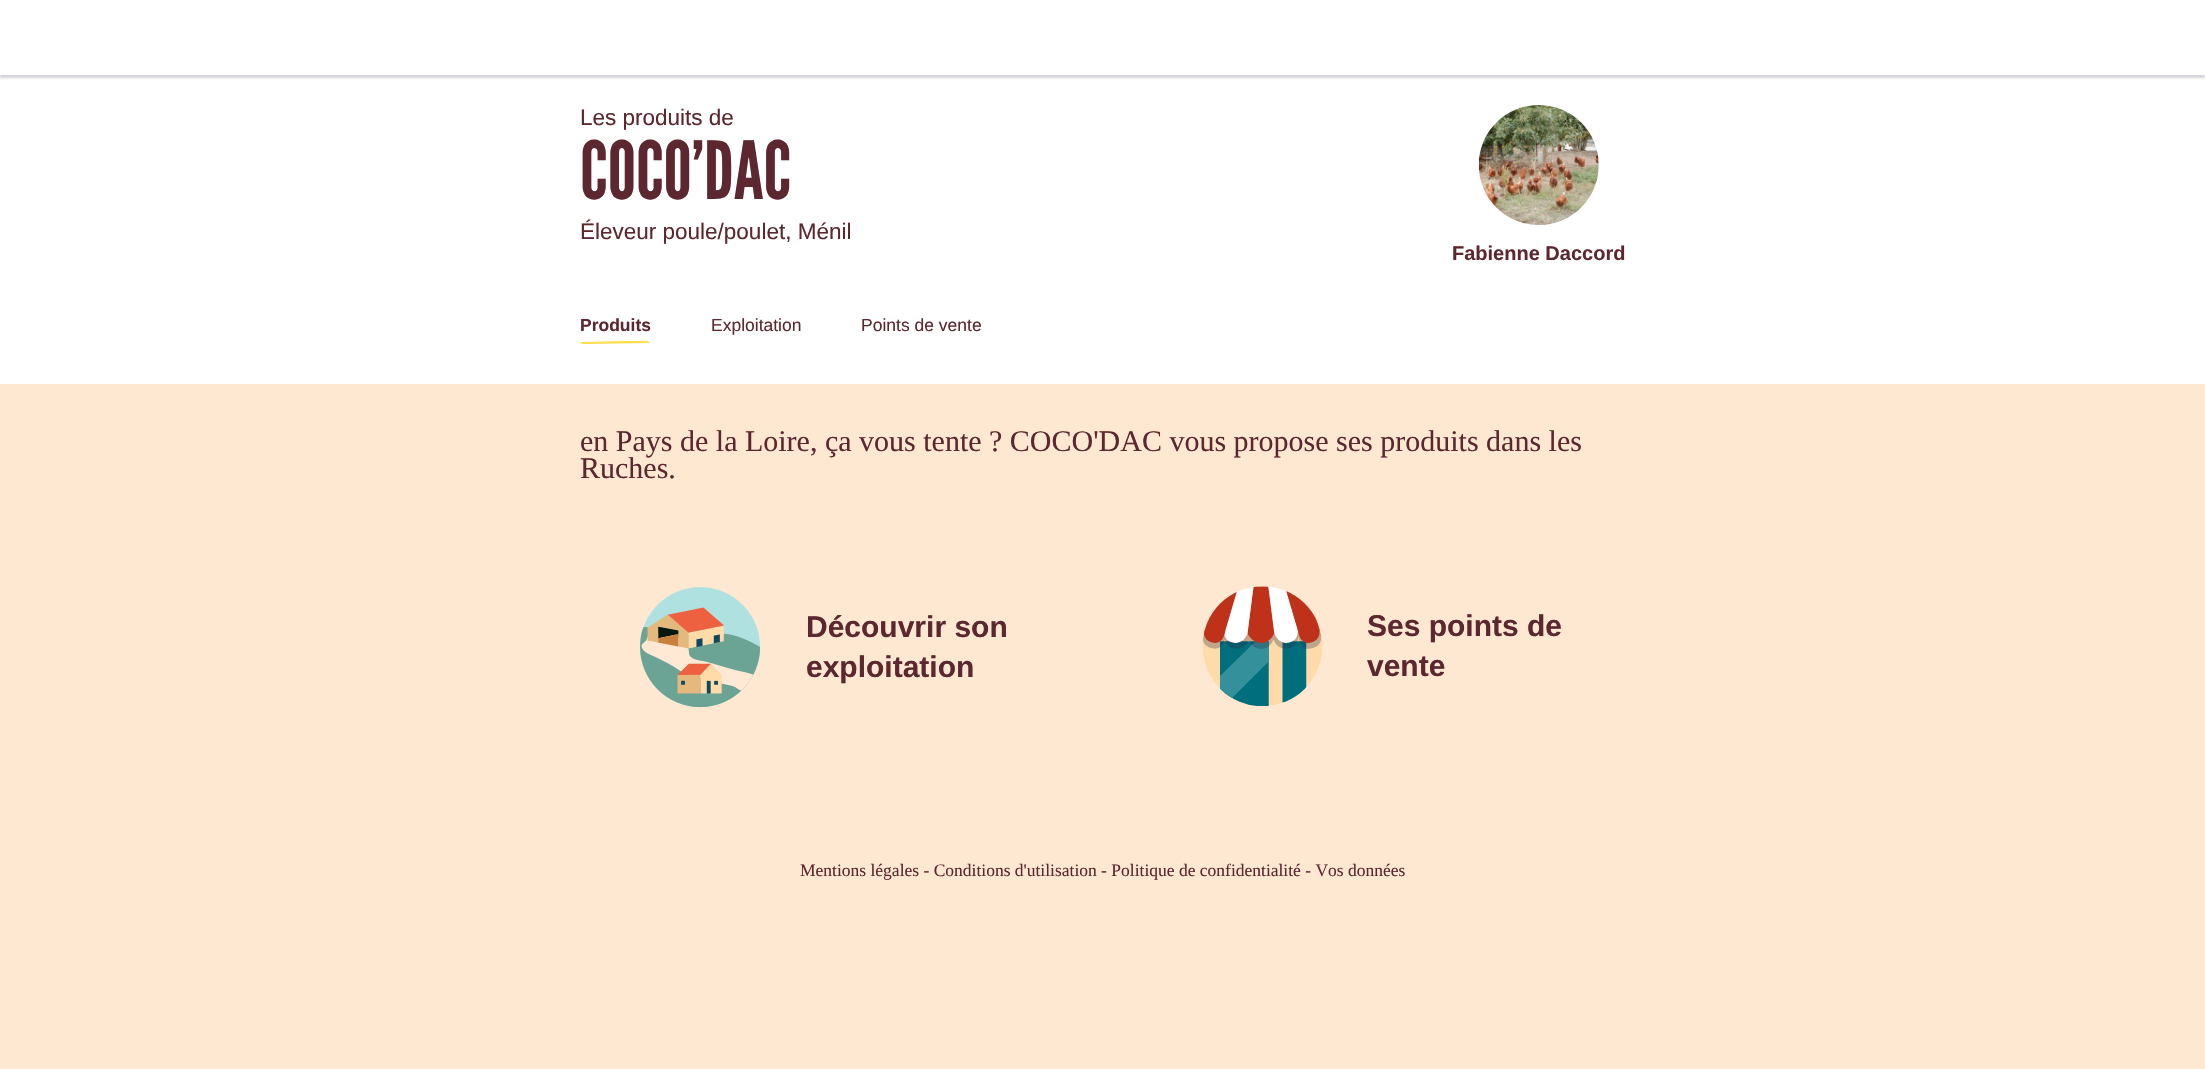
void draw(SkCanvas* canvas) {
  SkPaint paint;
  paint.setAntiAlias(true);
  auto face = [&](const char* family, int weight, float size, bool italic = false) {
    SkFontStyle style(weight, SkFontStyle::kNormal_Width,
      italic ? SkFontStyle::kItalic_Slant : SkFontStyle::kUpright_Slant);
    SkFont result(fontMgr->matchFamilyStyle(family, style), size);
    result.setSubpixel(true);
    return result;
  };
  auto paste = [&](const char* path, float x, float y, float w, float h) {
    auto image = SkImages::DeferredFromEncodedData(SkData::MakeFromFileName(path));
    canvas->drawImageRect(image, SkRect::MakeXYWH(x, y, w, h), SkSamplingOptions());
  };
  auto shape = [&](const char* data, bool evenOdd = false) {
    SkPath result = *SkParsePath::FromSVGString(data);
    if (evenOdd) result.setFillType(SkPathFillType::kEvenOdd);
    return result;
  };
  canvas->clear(0xffffe8d2);
  paint.setColor(0xffffffff);
  canvas->drawRect(SkRect::MakeXYWH(0, 75, 2205, 309), paint);
  paint.setColor(0x332d2846);
  paint.setMaskFilter(SkMaskFilter::MakeBlur(kNormal_SkBlurStyle, 1));
  canvas->drawRect(SkRect::MakeXYWH(0, 3, 2205, 75), paint);
  paint.setMaskFilter(nullptr);
  paint.setColor(0xffffffff);
  canvas->drawRect(SkRect::MakeXYWH(0, 0, 2205, 75), paint);
  paste("img/1.png", 1478, 105, 121, 120);
  paint.setColor(0xffffdf4d);
  canvas->drawPath(shape("M650 342C649 342 648 342 649 342L647 341H625L584 342H581L580 343C580 344 588 344 590 344H585L649 343C651 343 651 342 649 342H650", true), paint);
  paste("img/2.png", 640, 587, 121, 121);
  paste("img/3.png", 1203, 586, 119, 120);
  auto f0 = face("Liberation Sans", 400, 22.5f);
  paint.setColor(0xff5c272f);
  canvas->drawString("Les produits de", 580, 125, f0, paint);
  auto f1 = face("League Gothic", 400, 80);
  canvas->drawString("COCO'DAC", 580, 199, f1, paint);
  canvas->drawString("Éleveur poule/poulet, Ménil", 580, 239, f0, paint);
  auto f2 = face("Liberation Sans", 700, 20);
  canvas->drawString("Fabienne Daccord", 1452, 260, f2, paint);
  auto f3 = face("Liberation Sans", 700, 17.5f);
  canvas->drawString("Produits", 580, 331, f3, paint);
  auto f4 = face("Liberation Sans", 400, 17.5f);
  canvas->drawString("Exploitation", 711, 331, f4, paint);
  canvas->drawString("Points de vente", 861, 331, f4, paint);
  auto f5 = face("Liberation Serif", 400, 30);
  canvas->drawString("en Pays de la Loire, ça vous tente ? COCO'DAC vous propose ses produits dans les", 580, 451, f5, paint);
  canvas->drawString("Ruches.", 580, 478, f5, paint);
  auto f6 = face("Liberation Sans", 700, 30);
  {
    const struct { const char* s; float x, y; } items[] = {
      {"Découvrir son", 806, 637},
      {"exploitation", 806, 677},
      {"Ses points de", 1367, 636},
      {"vente", 1367, 676},
    };
    for (auto [s, x, y] : items) {
      canvas->drawString(s, x, y, f6, paint);
    }
  }
  auto f7 = face("Liberation Serif", 400, 17.5f);
  canvas->drawString("Mentions légales - Conditions d'utilisation - Politique de confidentialité - Vos données", 800, 876, f7, paint);
}
